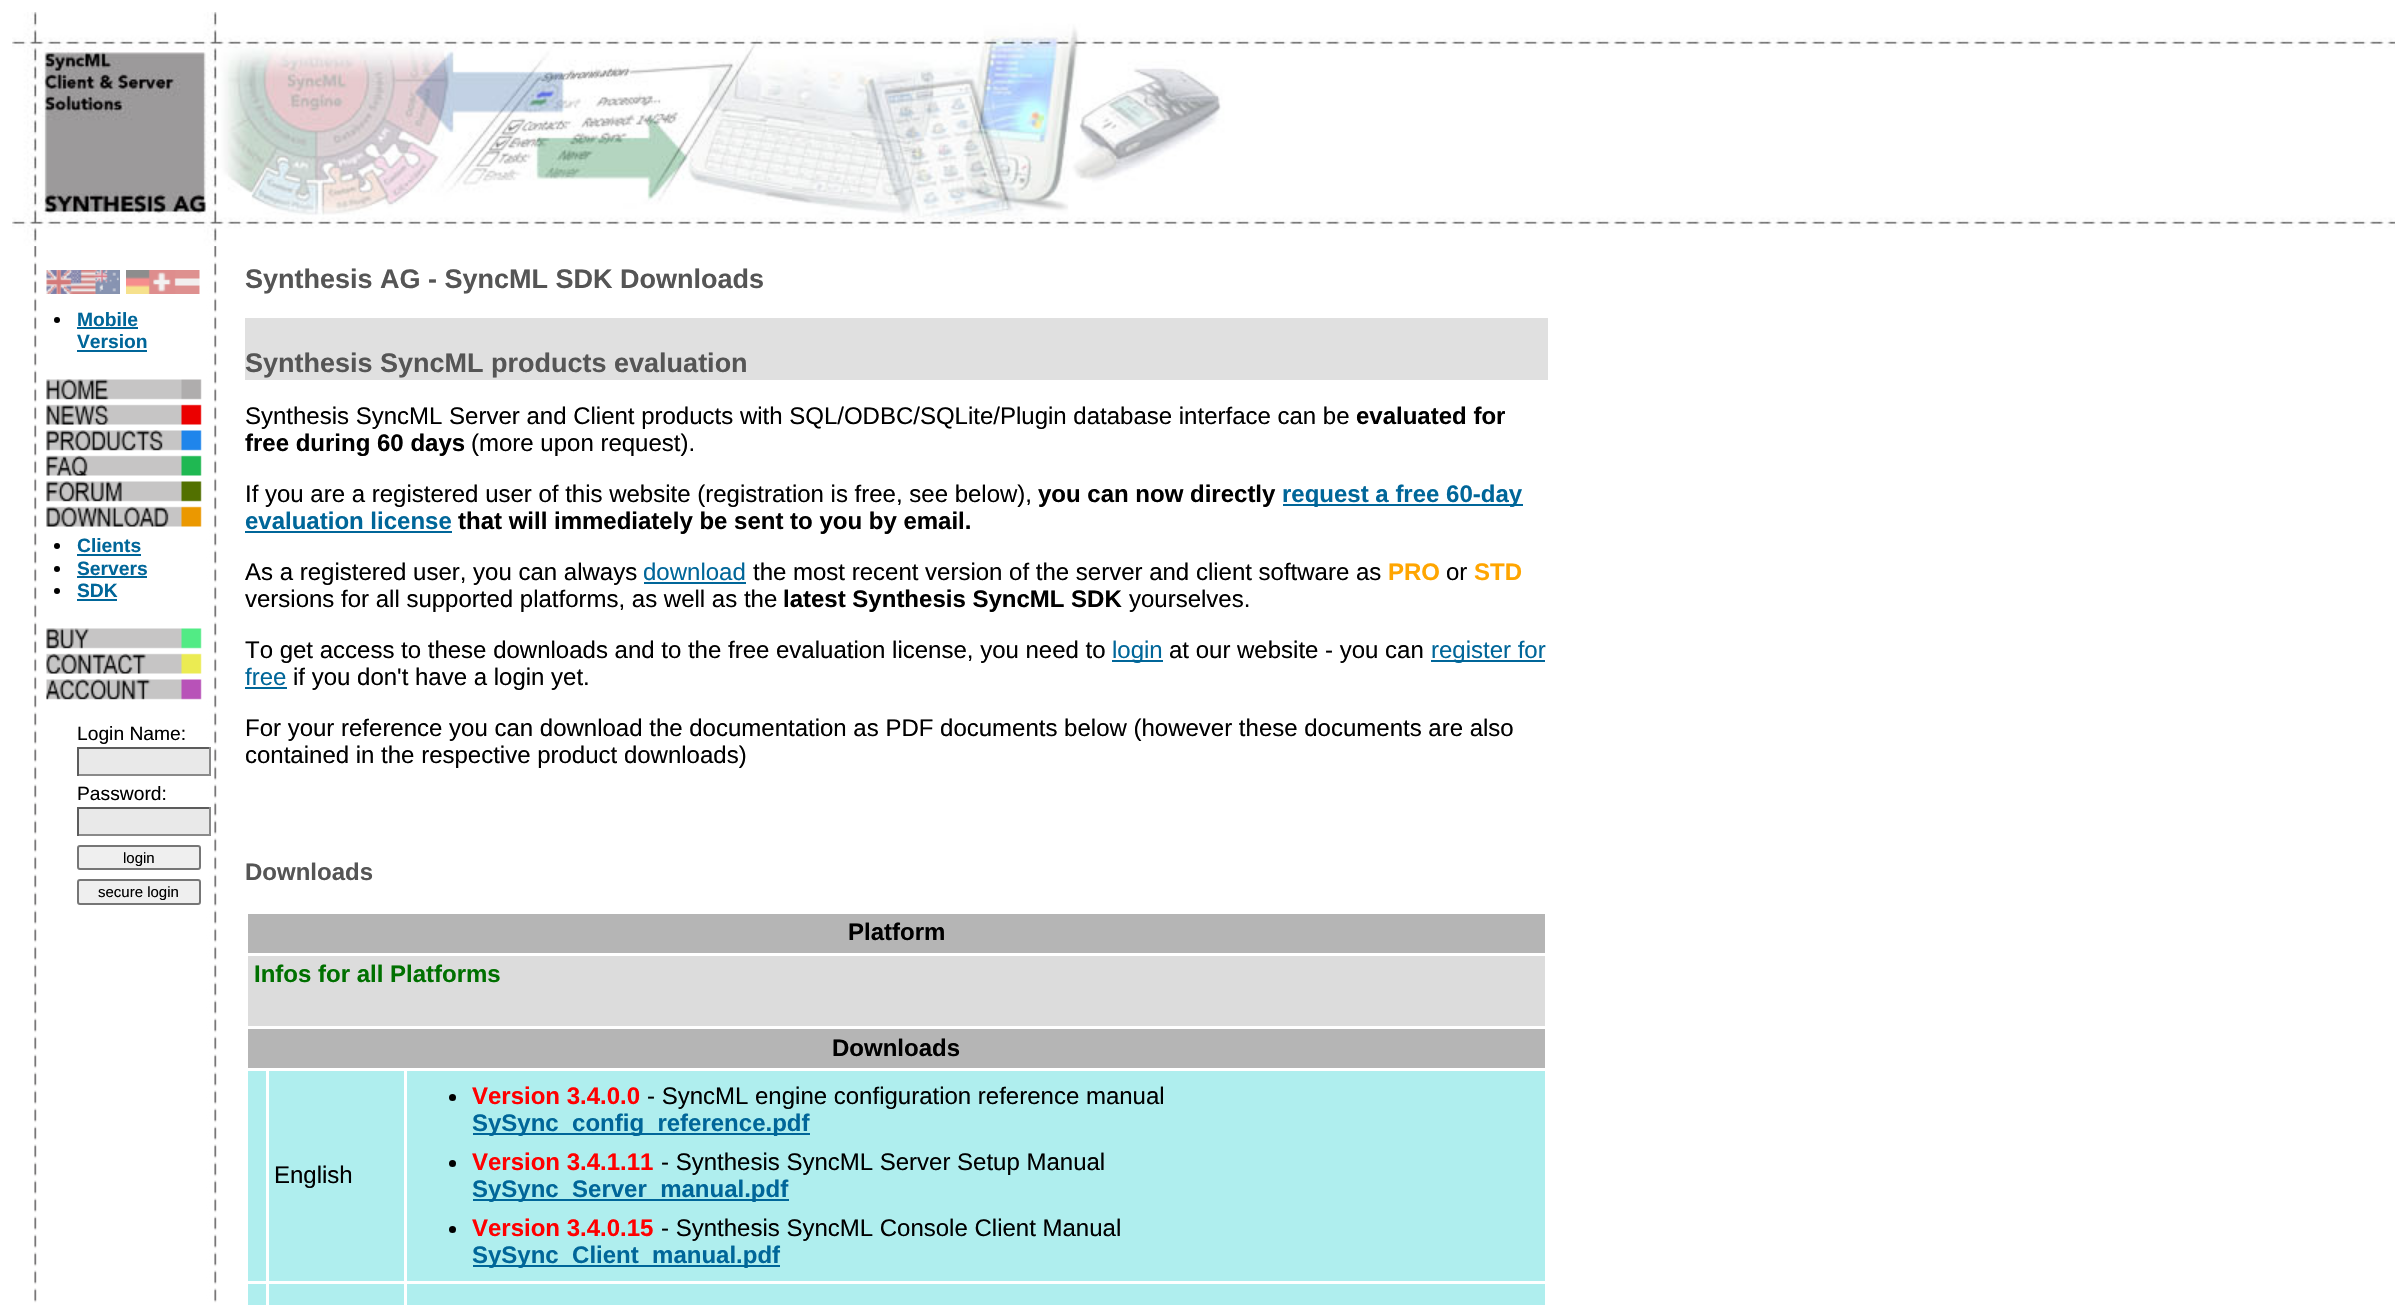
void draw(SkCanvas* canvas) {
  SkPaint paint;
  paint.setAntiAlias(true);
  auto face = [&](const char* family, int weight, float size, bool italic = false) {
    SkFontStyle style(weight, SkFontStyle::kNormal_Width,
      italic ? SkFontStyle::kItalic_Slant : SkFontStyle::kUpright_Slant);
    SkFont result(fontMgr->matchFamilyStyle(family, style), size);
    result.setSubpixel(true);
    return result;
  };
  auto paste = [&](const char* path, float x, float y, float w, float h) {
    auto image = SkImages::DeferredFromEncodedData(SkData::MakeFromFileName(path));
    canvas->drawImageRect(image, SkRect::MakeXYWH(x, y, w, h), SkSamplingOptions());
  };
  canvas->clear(0xffffffff);
  paste("img/1.png", 12, 12, 2383, 234);
  paste("img/2.png", 34, 246, 183, 1057);
  paste("img/3.png", 46, 270, 74, 24);
  paste("img/4.png", 126, 270, 74, 24);
  paint.setColor(0xff000000);
  canvas->drawCircle(57, 320, 3, paint);
  paint.setColor(0xff006699);
  canvas->drawRect(SkRect::MakeXYWH(77, 327, 61, 2), paint);
  canvas->drawRect(SkRect::MakeXYWH(77, 350, 70, 2), paint);
  paste("img/5.png", 46, 379, 156, 21);
  paste("img/6.png", 46, 404, 156, 21);
  paste("img/7.png", 46, 430, 156, 21);
  paste("img/8.png", 46, 455, 156, 21);
  paste("img/9.png", 46, 481, 156, 21);
  paste("img/10.png", 46, 506, 156, 21);
  paint.setColor(0xff000000);
  canvas->drawCircle(57, 546, 3, paint);
  paint.setColor(0xff006699);
  canvas->drawRect(SkRect::MakeXYWH(77, 554, 64, 2), paint);
  paint.setColor(0xff000000);
  canvas->drawCircle(57, 569, 3, paint);
  paint.setColor(0xff006699);
  canvas->drawRect(SkRect::MakeXYWH(77, 576, 70, 2), paint);
  paint.setColor(0xff000000);
  canvas->drawCircle(57, 591, 3, paint);
  paint.setColor(0xff006699);
  canvas->drawRect(SkRect::MakeXYWH(77, 599, 40, 2), paint);
  paste("img/11.png", 46, 628, 156, 21);
  paste("img/12.png", 46, 653, 156, 21);
  paste("img/13.png", 46, 679, 156, 21);
  {
    const struct { float x, y, w, h; SkColor color; } items[] = {
      {79, 749, 130, 25, 0xffe9e9e9},
      {77, 747, 133, 2, 0xff5c5c5c},
      {209, 747, 2, 29, 0xff8a8a8a},
      {77, 774, 133, 2, 0xff8a8a8a},
      {77, 747, 2, 29, 0xff5c5c5c},
      {79, 809, 130, 25, 0xffe9e9e9},
      {77, 807, 133, 2, 0xff5c5c5c},
      {209, 807, 2, 29, 0xff8a8a8a},
      {77, 834, 133, 2, 0xff8a8a8a},
      {77, 807, 2, 29, 0xff5c5c5c},
    };
    for (auto [x, y, w, h, color] : items) {
      paint.setColor(color);
      canvas->drawRect(SkRect::MakeXYWH(x, y, w, h), paint);
    }
  }
  paint.setColor(0xffefefef);
  canvas->drawRoundRect(SkRect::MakeXYWH(78, 846, 122, 23), 2, 2, paint);
  paint.setStroke(true);
  paint.setStrokeWidth(2);
  paint.setColor(0xff767676);
  canvas->drawRoundRect(SkRect::MakeXYWH(78, 846, 122, 23), 2, 2, paint);
  paint.setStroke(false);
  paint.setColor(0xffefefef);
  canvas->drawRoundRect(SkRect::MakeXYWH(78, 880, 122, 24), 2, 2, paint);
  paint.setStroke(true);
  paint.setColor(0xff767676);
  canvas->drawRoundRect(SkRect::MakeXYWH(78, 880, 122, 24), 2, 2, paint);
  paint.setStroke(false);
  {
    const struct { float x, y, w, h; SkColor color; } items[] = {
      {245, 318, 1303, 62, 0xffe0e0e0},
      {1283, 504, 240, 2, 0xff006699},
      {245, 531, 207, 2, 0xff006699},
      {644, 582, 102, 2, 0xff006699},
      {1112, 660, 51, 2, 0xff006699},
      {1431, 660, 114, 2, 0xff006699},
      {245, 687, 42, 2, 0xff006699},
      {248, 914, 1297, 39, 0xffb5b5b5},
      {248, 956, 1297, 70, 0xffdcdcdc},
      {248, 1029, 1297, 39, 0xffb5b5b5},
      {248, 1071, 18, 210, 0xffafeeee},
      {269, 1071, 135, 210, 0xffafeeee},
      {407, 1071, 1138, 210, 0xffafeeee},
    };
    for (auto [x, y, w, h, color] : items) {
      paint.setColor(color);
      canvas->drawRect(SkRect::MakeXYWH(x, y, w, h), paint);
    }
  }
  paint.setColor(0xff000000);
  canvas->drawCircle(452.5f, 1097.5f, 3.5f, paint);
  paint.setColor(0xff006699);
  canvas->drawRect(SkRect::MakeXYWH(473, 1133, 337, 2), paint);
  paint.setColor(0xff000000);
  canvas->drawCircle(452.5f, 1163.5f, 3.5f, paint);
  paint.setColor(0xff006699);
  canvas->drawRect(SkRect::MakeXYWH(473, 1199, 316, 2), paint);
  paint.setColor(0xff000000);
  canvas->drawCircle(452.5f, 1229.5f, 3.5f, paint);
  {
    const struct { float x, y, w, h; SkColor color; } items[] = {
      {473, 1265, 307, 2, 0xff006699},
      {248, 1284, 18, 21, 0xffafeeee},
      {269, 1284, 135, 21, 0xffafeeee},
      {407, 1284, 1138, 21, 0xffafeeee},
    };
    for (auto [x, y, w, h, color] : items) {
      paint.setColor(color);
      canvas->drawRect(SkRect::MakeXYWH(x, y, w, h), paint);
    }
  }
  auto f0 = face("Liberation Sans", 700, 19.25f);
  paint.setColor(0xff006699);
  {
    const struct { const char* s; float x, y; } items[] = {
      {"Mobile", 77, 326},
      {"Version", 77, 348},
      {"Clients", 77, 552},
      {"Servers", 77, 575},
      {"SDK", 77, 597},
    };
    for (auto [s, x, y] : items) {
      canvas->drawString(s, x, y, f0, paint);
    }
  }
  auto f1 = face("Liberation Sans", 400, 19.25f);
  paint.setColor(0xff000000);
  canvas->drawString("Login Name:", 77, 740, f1, paint);
  canvas->drawString("Password:", 77, 800, f1, paint);
  auto f2 = face("Liberation Sans", 400, 15);
  canvas->drawString("login", 123, 863, f2, paint);
  canvas->drawString("secure login", 98, 897, f2, paint);
  auto f3 = face("Liberation Sans", 700, 27);
  paint.setColor(0xff555555);
  canvas->drawString("Synthesis AG - SyncML SDK Downloads", 245, 288, f3, paint);
  canvas->drawString("Synthesis SyncML products evaluation", 245, 372, f3, paint);
  auto f4 = face("Liberation Sans", 400, 24);
  paint.setColor(0xff000000);
  canvas->drawString("Synthesis SyncML Server and Client products with SQL/ODBC/SQLite/Plugin database interface can be", 245, 424, f4, paint);
  auto f5 = face("Liberation Sans", 700, 24);
  canvas->drawString("evaluated for", 1356, 424, f5, paint);
  canvas->drawString("free during 60 days", 245, 451, f5, paint);
  canvas->drawString("(more upon request).", 471, 451, f4, paint);
  canvas->drawString("If you are a registered user of this website (registration is free, see below),", 245, 502, f4, paint);
  canvas->drawString("you can now directly", 1038, 502, f5, paint);
  paint.setColor(0xff006699);
  canvas->drawString("request a free 60-day", 1282, 502, f5, paint);
  canvas->drawString("evaluation license", 245, 529, f5, paint);
  paint.setColor(0xff000000);
  canvas->drawString("that will immediately be sent to you by email.", 458, 529, f5, paint);
  canvas->drawString("As a registered user, you can always", 245, 580, f4, paint);
  paint.setColor(0xff006699);
  canvas->drawString("download", 643, 580, f4, paint);
  paint.setColor(0xff000000);
  canvas->drawString("the most recent version of the server and client software as", 753, 580, f4, paint);
  paint.setColor(0xffffa500);
  canvas->drawString("PRO", 1388, 580, f5, paint);
  paint.setColor(0xff000000);
  canvas->drawString("or", 1446, 580, f4, paint);
  paint.setColor(0xffffa500);
  canvas->drawString("STD", 1474, 580, f5, paint);
  paint.setColor(0xff000000);
  canvas->drawString("versions for all supported platforms, as well as the", 245, 607, f4, paint);
  canvas->drawString("latest Synthesis SyncML SDK", 783, 607, f5, paint);
  canvas->drawString("yourselves.", 1129, 607, f4, paint);
  canvas->drawString("To get access to these downloads and to the free evaluation license, you need to", 245, 658, f4, paint);
  paint.setColor(0xff006699);
  canvas->drawString("login", 1112, 658, f4, paint);
  paint.setColor(0xff000000);
  canvas->drawString("at our website - you can", 1169, 658, f4, paint);
  paint.setColor(0xff006699);
  canvas->drawString("register for", 1431, 658, f4, paint);
  canvas->drawString("free", 245, 685, f4, paint);
  paint.setColor(0xff000000);
  {
    const struct { const char* s; float x, y; } items[] = {
      {"if you don't have a login yet.", 293, 685},
      {"For your reference you can download the documentation as PDF documents below (however these documents are also", 245, 736},
      {"contained in the respective product downloads)", 245, 763},
    };
    for (auto [s, x, y] : items) {
      canvas->drawString(s, x, y, f4, paint);
    }
  }
  paint.setColor(0xff555555);
  canvas->drawString("Downloads", 245, 880, f5, paint);
  paint.setColor(0xff000000);
  canvas->drawString("Platform", 848, 940, f5, paint);
  paint.setColor(0xff007000);
  canvas->drawString("Infos for all Platforms", 254, 982, f5, paint);
  paint.setColor(0xff000000);
  canvas->drawString("Downloads", 832, 1056, f5, paint);
  canvas->drawString("English", 274, 1183, f4, paint);
  paint.setColor(0xffff0000);
  canvas->drawString("Version 3.4.0.0", 472, 1104, f5, paint);
  paint.setColor(0xff000000);
  canvas->drawString("- SyncML engine configuration reference manual", 647, 1104, f4, paint);
  paint.setColor(0xff006699);
  canvas->drawString("SySync_config_reference.pdf", 472, 1131, f5, paint);
  paint.setColor(0xffff0000);
  canvas->drawString("Version 3.4.1.11", 472, 1170, f5, paint);
  paint.setColor(0xff000000);
  canvas->drawString("- Synthesis SyncML Server Setup Manual", 661, 1170, f4, paint);
  paint.setColor(0xff006699);
  canvas->drawString("SySync_Server_manual.pdf", 472, 1197, f5, paint);
  paint.setColor(0xffff0000);
  canvas->drawString("Version 3.4.0.15", 472, 1236, f5, paint);
  paint.setColor(0xff000000);
  canvas->drawString("- Synthesis SyncML Console Client Manual", 661, 1236, f4, paint);
  paint.setColor(0xff006699);
  canvas->drawString("SySync_Client_manual.pdf", 472, 1263, f5, paint);
}
